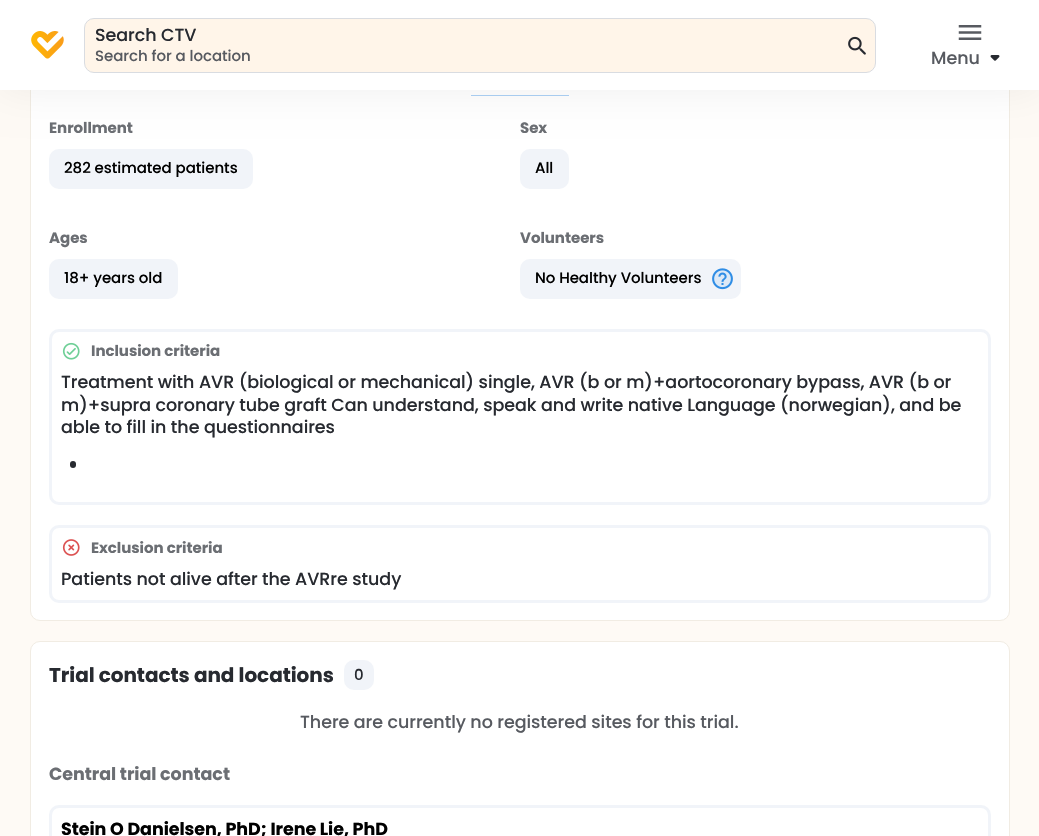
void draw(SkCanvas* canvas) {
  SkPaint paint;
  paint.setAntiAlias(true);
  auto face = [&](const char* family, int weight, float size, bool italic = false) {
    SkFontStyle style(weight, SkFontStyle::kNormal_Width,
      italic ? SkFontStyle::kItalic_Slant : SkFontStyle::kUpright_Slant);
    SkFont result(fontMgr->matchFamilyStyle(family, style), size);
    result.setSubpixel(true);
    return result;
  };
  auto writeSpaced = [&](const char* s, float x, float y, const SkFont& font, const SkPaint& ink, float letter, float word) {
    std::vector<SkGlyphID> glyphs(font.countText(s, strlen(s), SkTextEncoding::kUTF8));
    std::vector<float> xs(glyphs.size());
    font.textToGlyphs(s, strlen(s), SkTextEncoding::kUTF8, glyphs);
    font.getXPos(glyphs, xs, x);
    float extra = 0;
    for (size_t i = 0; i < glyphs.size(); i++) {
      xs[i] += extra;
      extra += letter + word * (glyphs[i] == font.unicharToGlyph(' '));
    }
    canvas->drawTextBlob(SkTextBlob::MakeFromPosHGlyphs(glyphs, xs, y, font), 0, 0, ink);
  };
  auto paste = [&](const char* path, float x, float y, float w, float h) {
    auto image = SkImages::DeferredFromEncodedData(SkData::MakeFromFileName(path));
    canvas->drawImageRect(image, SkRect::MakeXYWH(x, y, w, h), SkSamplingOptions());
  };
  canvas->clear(0xfffefaf5);
  paint.setColor(0xffffffff);
  canvas->drawRoundRect(SkRect::MakeXYWH(30.5f, -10.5f, 979, 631), 9.5f, 9.5f, paint);
  paint.setStroke(true);
  paint.setStrokeWidth(1);
  paint.setColor(0xfff1ece3);
  canvas->drawRoundRect(SkRect::MakeXYWH(30.5f, -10.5f, 979, 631), 9.5f, 9.5f, paint);
  paint.setStroke(false);
  paint.setColor(0xffacd1f5);
  canvas->drawRect(SkRect::MakeXYWH(471, 95, 98, 1), paint);
  paint.setColor(0xfff1f4f9);
  canvas->drawRoundRect(SkRect::MakeXYWH(49, 149, 204, 40), 10, 10, paint);
  canvas->drawRoundRect(SkRect::MakeXYWH(520, 149, 49, 40), 10, 10, paint);
  paint.setColor(0x0f000000);
  paint.setMaskFilter(SkMaskFilter::MakeBlur(kNormal_SkBlurStyle, 20));
  canvas->drawRect(SkRect::MakeXYWH(0, 0, 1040, 90), paint);
  paint.setMaskFilter(nullptr);
  paint.setColor(0xffffffff);
  canvas->drawRect(SkRect::MakeXYWH(0, 0, 1039, 90), paint);
  paste("img/1.png", 31, 31, 33, 28);
  paint.setColor(0xfffff5e9);
  canvas->drawRoundRect(SkRect::MakeXYWH(84.5f, 18.5f, 791, 54), 9.5f, 9.5f, paint);
  paint.setStroke(true);
  paint.setColor(0xffd9dce1);
  canvas->drawRoundRect(SkRect::MakeXYWH(84.5f, 18.5f, 791, 54), 9.5f, 9.5f, paint);
  paste("img/2.png", 848, 36, 18, 19);
  paste("img/3.png", 958, 25, 24, 15);
  paste("img/4.png", 990, 55, 10, 6);
  paint.setStroke(false);
  paint.setColor(0xfff1f4f9);
  canvas->drawRoundRect(SkRect::MakeXYWH(49, 259, 129, 40), 10, 10, paint);
  canvas->drawRoundRect(SkRect::MakeXYWH(520, 259, 221, 40), 10, 10, paint);
  paste("img/5.png", 712, 268, 21, 22);
  paint.setStroke(true);
  paint.setStrokeWidth(3);
  canvas->drawRoundRect(SkRect::MakeXYWH(50.5f, 330.5f, 939, 173), 8.5f, 8.5f, paint);
  paste("img/6.png", 62, 342, 18, 18);
  paint.setStroke(false);
  paint.setColor(0xff272a30);
  canvas->drawRoundRect(SkRect::MakeXYWH(70, 461, 6, 7), 3, 3, paint);
  paint.setStroke(true);
  paint.setColor(0xfff1f4f9);
  canvas->drawRoundRect(SkRect::MakeXYWH(50.5f, 526.5f, 939, 75), 8.5f, 8.5f, paint);
  paste("img/7.png", 62, 539, 18, 17);
  paint.setStroke(false);
  paint.setColor(0xffffffff);
  canvas->drawRoundRect(SkRect::MakeXYWH(30.5f, 641.5f, 979, 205), 9.5f, 9.5f, paint);
  paint.setStroke(true);
  paint.setStrokeWidth(1);
  paint.setColor(0xfff1ece3);
  canvas->drawRoundRect(SkRect::MakeXYWH(30.5f, 641.5f, 979, 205), 9.5f, 9.5f, paint);
  paint.setStroke(false);
  paint.setColor(0xfff1f4f9);
  canvas->drawRoundRect(SkRect::MakeXYWH(344, 660, 30, 30), 10, 10, paint);
  paint.setStroke(true);
  paint.setStrokeWidth(3);
  canvas->drawRoundRect(SkRect::MakeXYWH(50.5f, 806.5f, 939, 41), 8.5f, 8.5f, paint);
  auto f0 = face("Poppins", 500, 17.5f);
  paint.setStroke(false);
  paint.setColor(0xff272a30);
  writeSpaced("Search CTV", 95, 41, f0, paint, -0.05f, 0);
  auto f1 = face("Poppins", 500, 15);
  paint.setColor(0xff575a60);
  writeSpaced("Search for a location", 95, 61, f1, paint, -0.05f, 0);
  writeSpaced("Menu", 931, 64, f0, paint, -0.05f, 0);
  auto f2 = face("Poppins", 700, 15);
  paint.setColor(0xff6b6e73);
  writeSpaced("Enrollment", 49, 133, f2, paint, -0.05f, 0);
  paint.setColor(0xff000000);
  writeSpaced("282 estimated patients", 64, 173, f1, paint, -0.05f, 0);
  paint.setColor(0xff6b6e73);
  writeSpaced("Sex", 520, 133, f2, paint, -0.05f, 0);
  paint.setColor(0xff000000);
  writeSpaced("All", 535, 173, f1, paint, -0.05f, 0);
  paint.setColor(0xff6b6e73);
  writeSpaced("Ages", 49, 243, f2, paint, -0.05f, 0);
  paint.setColor(0xff000000);
  writeSpaced("18+ years old", 64, 283, f1, paint, -0.05f, 0);
  paint.setColor(0xff6b6e73);
  writeSpaced("Volunteers", 520, 243, f2, paint, -0.05f, 0);
  paint.setColor(0xff000000);
  writeSpaced("No Healthy Volunteers", 535, 283, f1, paint, -0.05f, 0);
  paint.setColor(0xff6b6e73);
  writeSpaced("Inclusion criteria", 91, 356, f2, paint, -0.05f, 0);
  paint.setColor(0xff272a30);
  {
    const struct { const char* s; float x, y; } items[] = {
      {"Treatment with AVR (biological or mechanical) single, AVR (b or m)+aortocoronary bypass, AVR (b or", 61, 388},
      {"m)+supra coronary tube graft Can understand, speak and write native Language (norwegian), and be", 61, 411},
      {"able to fill in the questionnaires", 61, 433},
    };
    for (auto [s, x, y] : items) {
      writeSpaced(s, x, y, f0, paint, -0.05f, 0);
    }
  }
  paint.setColor(0xff6b6e73);
  writeSpaced("Exclusion criteria", 91, 553, f2, paint, -0.05f, 0);
  paint.setColor(0xff272a30);
  writeSpaced("Patients not alive after the AVRre study", 61, 585, f0, paint, -0.05f, 0);
  auto f3 = face("Poppins", 700, 20);
  writeSpaced("Trial contacts and locations", 49, 682, f3, paint, -0.05f, 0);
  writeSpaced("0", 354, 680, f1, paint, -0.05f, 0);
  paint.setColor(0xff575a60);
  writeSpaced("There are currently no registered sites for this trial.", 300, 728, f0, paint, -0.05f, 0);
  auto f4 = face("Poppins", 700, 17.5f);
  paint.setColor(0xff6b6e73);
  writeSpaced("Central trial contact", 49, 780, f4, paint, -0.05f, 0);
  paint.setColor(0xff000000);
  writeSpaced("Stein O Danielsen, PhD; Irene Lie, PhD", 61, 835, f4, paint, -0.05f, 0);
}
